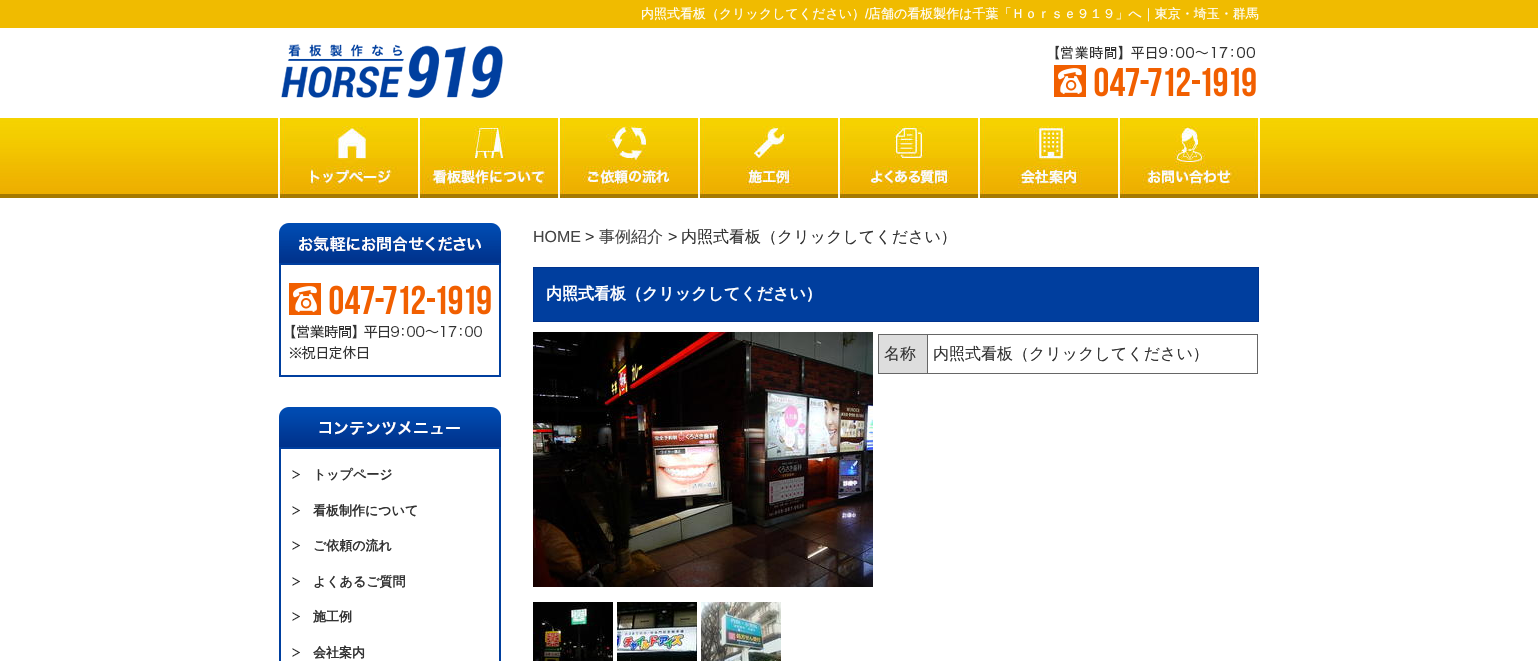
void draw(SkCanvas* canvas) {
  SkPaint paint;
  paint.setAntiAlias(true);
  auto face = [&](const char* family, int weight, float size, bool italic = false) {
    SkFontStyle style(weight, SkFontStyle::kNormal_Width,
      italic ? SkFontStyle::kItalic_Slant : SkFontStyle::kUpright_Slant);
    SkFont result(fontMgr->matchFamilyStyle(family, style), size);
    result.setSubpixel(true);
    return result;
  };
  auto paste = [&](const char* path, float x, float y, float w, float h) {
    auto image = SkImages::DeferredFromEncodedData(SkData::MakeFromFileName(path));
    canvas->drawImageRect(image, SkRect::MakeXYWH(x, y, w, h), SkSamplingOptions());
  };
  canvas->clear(0xffffffff);
  paint.setColor(0xfff0bb00);
  canvas->drawRect(SkRect::MakeXYWH(0, 0, 1538, 28), paint);
  paste("img/1.png", 281, 44, 222, 54);
  paste("img/2.png", 1054, 45, 202, 52);
  paste("img/3.png", 0, 118, 1538, 80);
  paste("img/4.png", 278, 118, 140, 80);
  paste("img/5.png", 418, 118, 140, 80);
  paste("img/6.png", 558, 118, 140, 80);
  paste("img/7.png", 698, 118, 140, 80);
  paste("img/8.png", 838, 118, 140, 80);
  paste("img/9.png", 978, 118, 140, 80);
  paste("img/10.png", 1118, 118, 142, 80);
  paint.setColor(0xff003e9e);
  canvas->drawRect(SkRect::MakeXYWH(533.5f, 267.5f, 725, 54), paint);
  paint.setStroke(true);
  paint.setStrokeWidth(1);
  paint.setColor(0xff00338d);
  canvas->drawRect(SkRect::MakeXYWH(533.5f, 267.5f, 725, 54), paint);
  paste("img/11.png", 533, 332, 340, 255);
  paste("img/12.png", 533, 602, 80, 59);
  paste("img/13.png", 617, 602, 80, 59);
  paste("img/14.png", 701, 602, 80, 59);
  paint.setStroke(false);
  {
    const struct { float x, y, w, h; SkColor color; } items[] = {
      {879, 335, 48, 38, 0xffdddddd},
      {927, 334, 331, 1, 0xff666666},
      {1257, 334, 1, 40, 0xff666666},
      {927, 373, 331, 1, 0xff666666},
      {927, 334, 1, 40, 0xff666666},
      {878, 334, 50, 1, 0xff666666},
      {878, 373, 50, 1, 0xff666666},
      {878, 334, 1, 40, 0xff666666},
    };
    for (auto [x, y, w, h, color] : items) {
      paint.setColor(color);
      canvas->drawRect(SkRect::MakeXYWH(x, y, w, h), paint);
    }
  }
  paste("img/15.png", 279, 223, 222, 154);
  paste("img/16.png", 279, 449, 222, 212);
  paste("img/17.png", 279, 407, 222, 42);
  paste("img/18.png", 292, 470, 8, 9);
  paste("img/18.png", 292, 506, 8, 9);
  paste("img/18.png", 292, 541, 8, 9);
  paste("img/18.png", 292, 577, 8, 9);
  paste("img/18.png", 292, 612, 8, 9);
  paste("img/18.png", 292, 648, 8, 9);
  auto f0 = face("WenQuanYi Zen Hei", 500, 13);
  paint.setColor(0xffffffff);
  canvas->drawString("内照式看板（クリックしてください）", 641, 18, f0, paint);
  auto f1 = face("Liberation Sans", 400, 13);
  canvas->drawString("/", 865, 18, f1, paint);
  canvas->drawString("店舗の看板製作は千葉「Ｈｏｒｓｅ９１９」へ｜東京・埼玉・群馬", 868, 18, f0, paint);
  auto f2 = face("Liberation Sans", 400, 16);
  paint.setColor(0xff444444);
  canvas->drawString("HOME", 533, 242, f2, paint);
  paint.setColor(0xff333333);
  canvas->drawString(">", 585, 242, f2, paint);
  auto f3 = face("WenQuanYi Zen Hei", 500, 16);
  paint.setColor(0xff444444);
  canvas->drawString("事例紹介", 599, 242, f3, paint);
  paint.setColor(0xff333333);
  canvas->drawString(">", 668, 242, f2, paint);
  canvas->drawString("内照式看板（クリックしてください）", 681, 242, f3, paint);
  auto f4 = face("WenQuanYi Zen Hei", 700, 16);
  paint.setColor(0xffffffff);
  canvas->drawString("内照式看板（クリックしてください）", 546, 299, f4, paint);
  paint.setColor(0xff333333);
  canvas->drawString("名称", 884, 359, f3, paint);
  canvas->drawString("内照式看板（クリックしてください）", 933, 359, f3, paint);
  auto f5 = face("WenQuanYi Zen Hei", 700, 13);
  {
    const struct { const char* s; float x, y; } items[] = {
      {"トップページ", 313, 479},
      {"看板制作について", 313, 515},
      {"ご依頼の流れ", 313, 550},
      {"よくあるご質問", 313, 586},
      {"施工例", 313, 621},
      {"会社案内", 313, 657},
    };
    for (auto [s, x, y] : items) {
      canvas->drawString(s, x, y, f5, paint);
    }
  }
}
